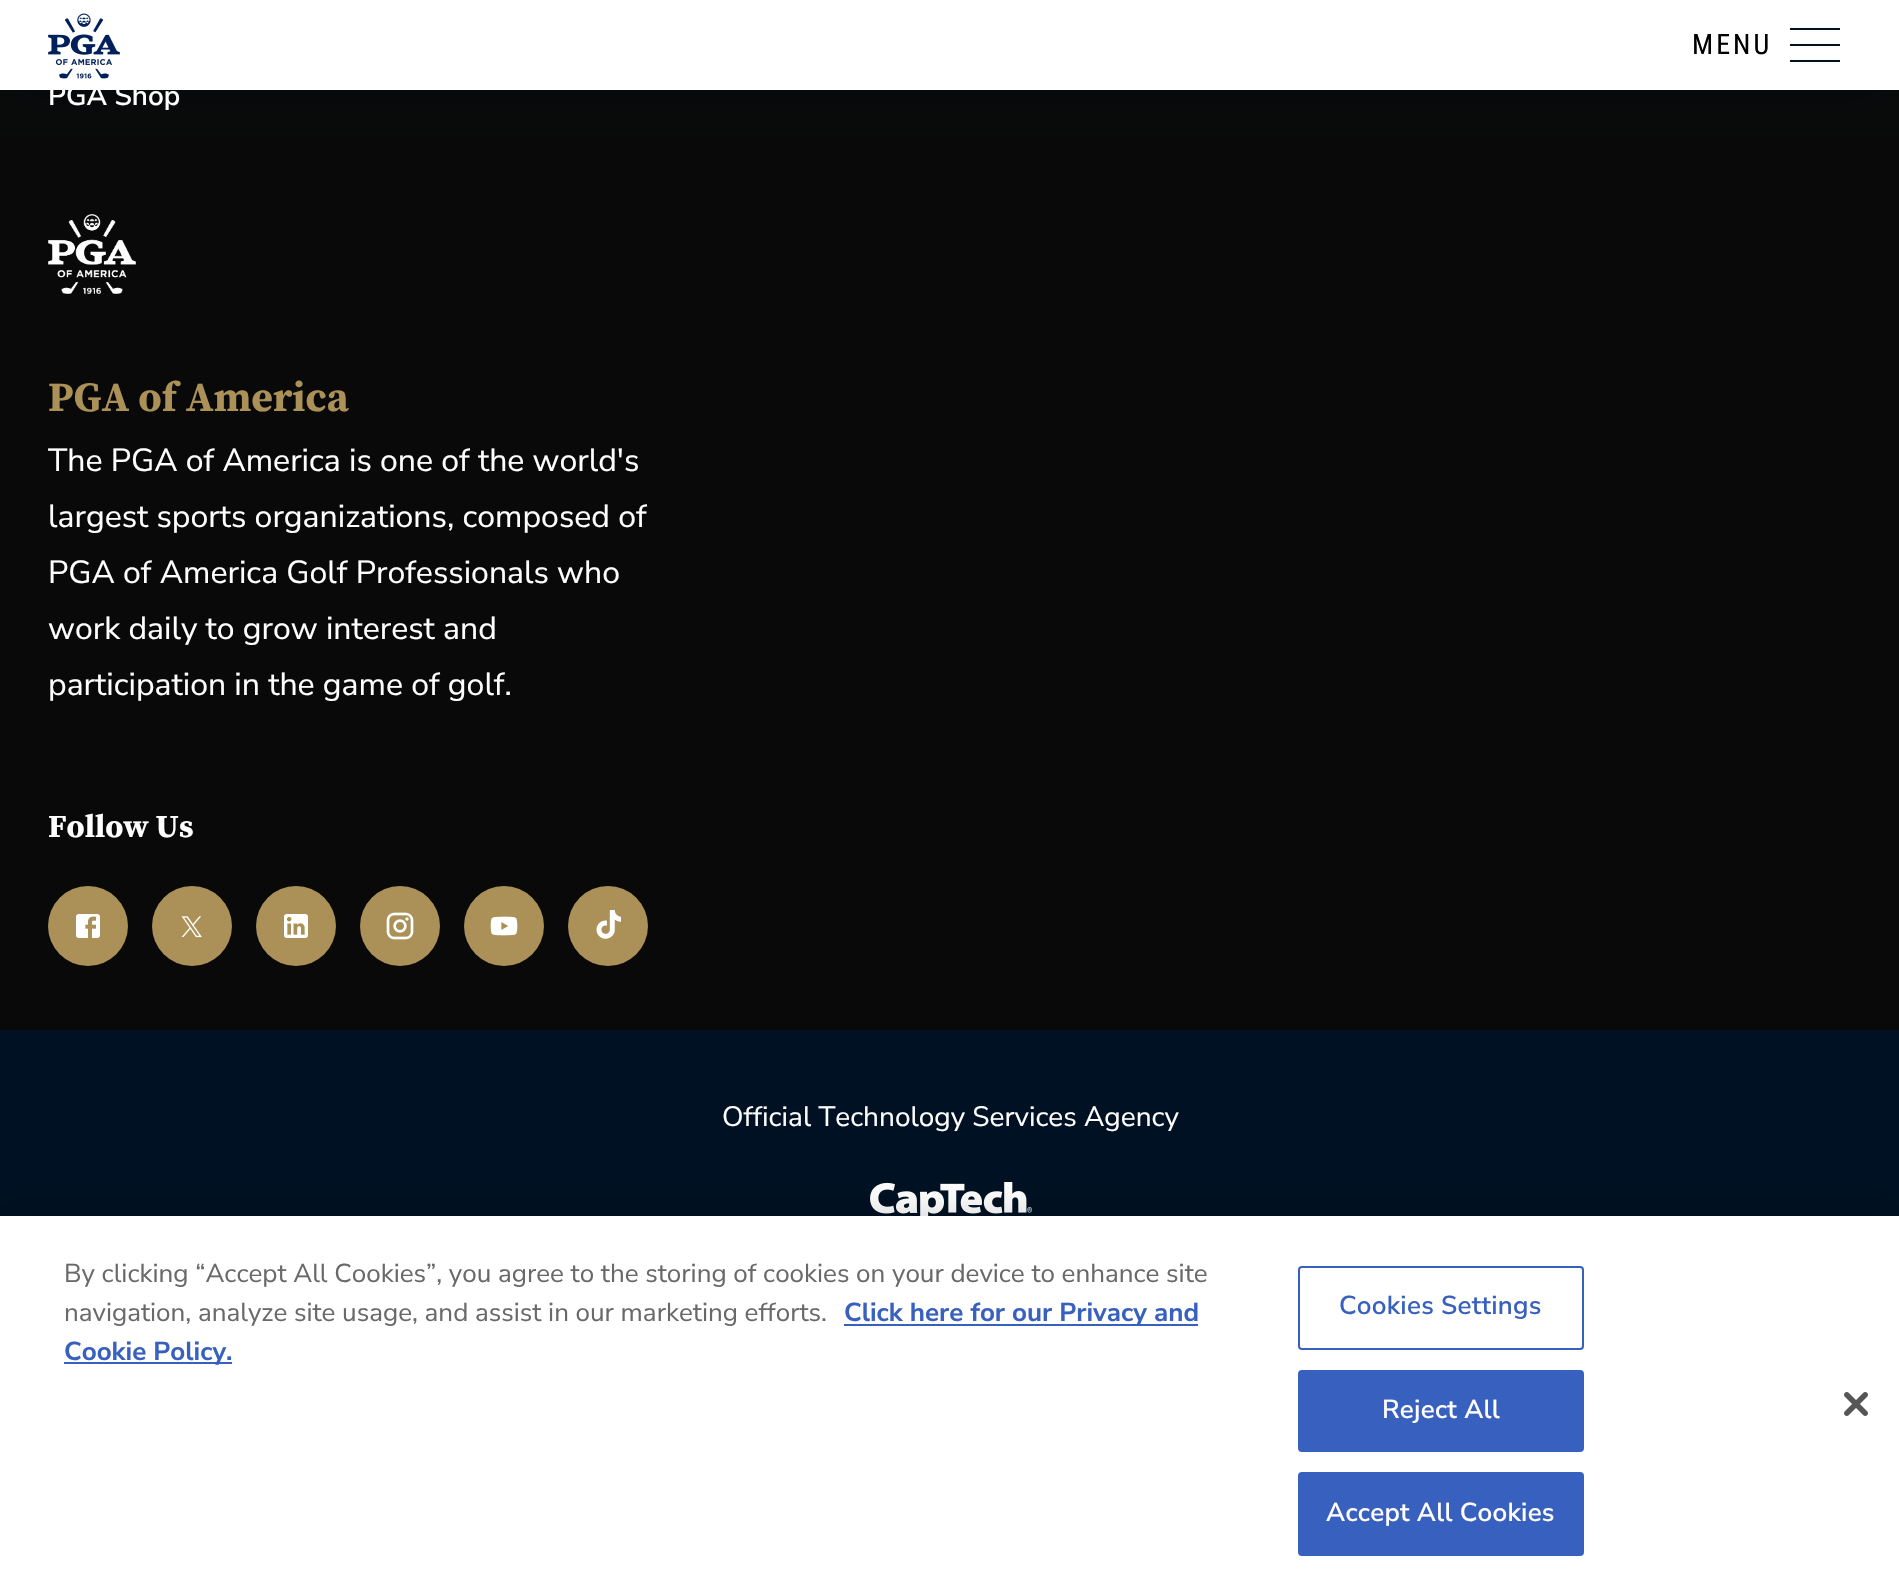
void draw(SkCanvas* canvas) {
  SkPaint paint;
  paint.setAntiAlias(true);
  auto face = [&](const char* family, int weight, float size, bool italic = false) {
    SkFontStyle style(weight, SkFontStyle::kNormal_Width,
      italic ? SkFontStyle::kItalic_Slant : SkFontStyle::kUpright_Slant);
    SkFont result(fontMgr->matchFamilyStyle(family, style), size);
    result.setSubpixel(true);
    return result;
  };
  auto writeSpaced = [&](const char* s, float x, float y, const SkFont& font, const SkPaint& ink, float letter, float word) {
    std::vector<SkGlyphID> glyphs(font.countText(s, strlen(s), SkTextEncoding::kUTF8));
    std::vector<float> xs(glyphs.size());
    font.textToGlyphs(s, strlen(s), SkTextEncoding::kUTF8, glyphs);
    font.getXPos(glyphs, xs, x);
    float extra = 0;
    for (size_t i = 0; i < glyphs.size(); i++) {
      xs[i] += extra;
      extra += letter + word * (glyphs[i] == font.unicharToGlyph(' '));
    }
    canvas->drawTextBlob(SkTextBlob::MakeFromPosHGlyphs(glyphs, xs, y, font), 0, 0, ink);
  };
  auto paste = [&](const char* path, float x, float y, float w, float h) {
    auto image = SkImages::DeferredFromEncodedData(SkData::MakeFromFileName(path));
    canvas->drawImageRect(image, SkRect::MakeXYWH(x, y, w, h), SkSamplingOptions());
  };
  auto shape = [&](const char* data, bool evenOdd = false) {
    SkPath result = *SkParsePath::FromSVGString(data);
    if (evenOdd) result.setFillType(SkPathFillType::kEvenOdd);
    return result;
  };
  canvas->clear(0xff090909);
  paint.setColor(0x0d000000);
  paint.setMaskFilter(SkMaskFilter::MakeBlur(kNormal_SkBlurStyle, 20));
  canvas->drawRect(SkRect::MakeXYWH(0, 20, 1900, 90), paint);
  paint.setMaskFilter(nullptr);
  paint.setColor(0xffffffff);
  canvas->drawRect(SkRect::MakeXYWH(0, 0, 1899, 90), paint);
  canvas->save();
  canvas->clipRect(SkRect::MakeXYWH(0, 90, 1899, 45));
  paint.setColor(0x21000a16);
  paint.setMaskFilter(SkMaskFilter::MakeBlur(kNormal_SkBlurStyle, 36));
  canvas->drawRect(SkRect::MakeXYWH(0, 8, 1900, 90), paint);
  paint.setMaskFilter(nullptr);
  canvas->restore();
  paste("img/1.png", 48, 13, 72, 66);
  paint.setStroke(true);
  paint.setStrokeWidth(2);
  paint.setColor(0xff001123);
  canvas->drawPath(shape("M1790 45H1840M1790 61H1840M1790 29H1840"), paint);
  paste("img/2.png", 48, 214, 88, 80);
  paint.setStroke(false);
  paint.setColor(0xffab9157);
  canvas->drawCircle(88, 926, 40, paint);
  paste("img/3.png", 76, 914, 24, 24);
  canvas->drawCircle(192, 926, 40, paint);
  paste("img/4.png", 181, 916, 21, 22);
  canvas->drawCircle(296, 926, 40, paint);
  paste("img/5.png", 284, 914, 24, 24);
  canvas->drawCircle(400, 926, 40, paint);
  paste("img/6.png", 386, 912, 28, 28);
  canvas->drawCircle(504, 926, 40, paint);
  paste("img/7.png", 490, 916, 28, 20);
  canvas->drawCircle(608, 926, 40, paint);
  paste("img/8.png", 596, 910, 25, 29);
  paint.setColor(0xff001123);
  canvas->drawRect(SkRect::MakeXYWH(0, 1030, 1899, 186), paint);
  paste("img/9.png", 870, 1182, 162, 34);
  paint.setColor(0x33000000);
  paint.setMaskFilter(SkMaskFilter::MakeBlur(kNormal_SkBlurStyle, 18));
  canvas->drawRect(SkRect::MakeXYWH(0, 1216, 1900, 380), paint);
  paint.setMaskFilter(nullptr);
  {
    const struct { float x, y, w, h; SkColor color; } items[] = {
      {0, 1216, 1899, 379, 0xffffffff},
      {844, 1324, 354, 2, 0xff3860be},
      {64, 1362, 168, 2, 0xff3860be},
    };
    for (auto [x, y, w, h, color] : items) {
      paint.setColor(color);
      canvas->drawRect(SkRect::MakeXYWH(x, y, w, h), paint);
    }
  }
  paint.setStroke(true);
  canvas->drawRoundRect(SkRect::MakeXYWH(1299, 1267, 284, 82), 3, 3, paint);
  paint.setStroke(false);
  canvas->drawRoundRect(SkRect::MakeXYWH(1299, 1371, 284, 80), 3, 3, paint);
  paint.setStroke(true);
  canvas->drawRoundRect(SkRect::MakeXYWH(1299, 1371, 284, 80), 3, 3, paint);
  paint.setStroke(false);
  canvas->drawRoundRect(SkRect::MakeXYWH(1299, 1473, 284, 82), 3, 3, paint);
  paint.setStroke(true);
  canvas->drawRoundRect(SkRect::MakeXYWH(1299, 1473, 284, 82), 3, 3, paint);
  paste("img/10.png", 1844, 1392, 24, 24);
  auto f0 = face("Roboto Condensed", 400, 28);
  paint.setStroke(false);
  paint.setColor(0xff000000);
  writeSpaced("MENU", 1692, 54, f0, paint, 3, 0);
  auto f1 = face("Nunito Sans", 600, 28);
  paint.setColor(0xffffffff);
  canvas->drawString("PGA Shop", 48, 105, f1, paint);
  auto f2 = face("Source Serif Pro", 700, 41.5f);
  paint.setColor(0xffab9157);
  canvas->drawString("PGA of America", 48, 411, f2, paint);
  auto f3 = face("Nunito Sans", 200, 32);
  paint.setColor(0xffffffff);
  {
    const struct { const char* s; float x, y; } items[] = {
      {"The PGA of America is one of the world's", 48, 471},
      {"largest sports organizations, composed of", 48, 527},
      {"PGA of America Golf Professionals who", 48, 583},
      {"work daily to grow interest and", 48, 639},
      {"participation in the game of golf.", 48, 695},
    };
    for (auto [s, x, y] : items) {
      canvas->drawString(s, x, y, f3, paint);
    }
  }
  auto f4 = face("Source Serif Pro", 700, 32);
  canvas->drawString("Follow Us", 48, 837, f4, paint);
  auto f5 = face("Nunito Sans", 200, 28);
  canvas->drawString("Official Technology Services Agency", 722, 1126, f5, paint);
  auto f6 = face("Nunito Sans", 200, 26);
  paint.setColor(0xff696969);
  canvas->drawString("By clicking “Accept All Cookies”, you agree to the storing of cookies on your device to enhance site", 64, 1282, f6, paint);
  canvas->drawString("navigation, analyze site usage, and assist in our marketing efforts.", 64, 1321, f6, paint);
  auto f7 = face("Nunito Sans", 700, 26);
  paint.setColor(0xff3860be);
  canvas->drawString("Click here for our Privacy and", 844, 1321, f7, paint);
  canvas->drawString("Cookie Policy.", 64, 1360, f7, paint);
  auto f8 = face("Nunito Sans", 600, 26);
  writeSpaced("Cookies Settings", 1339, 1314, f8, paint, 0.25f, 0);
  paint.setColor(0xffffffff);
  writeSpaced("Reject All", 1382, 1418, f8, paint, 0.25f, 0);
  writeSpaced("Accept All Cookies", 1326, 1521, f8, paint, 0.25f, 0);
}
